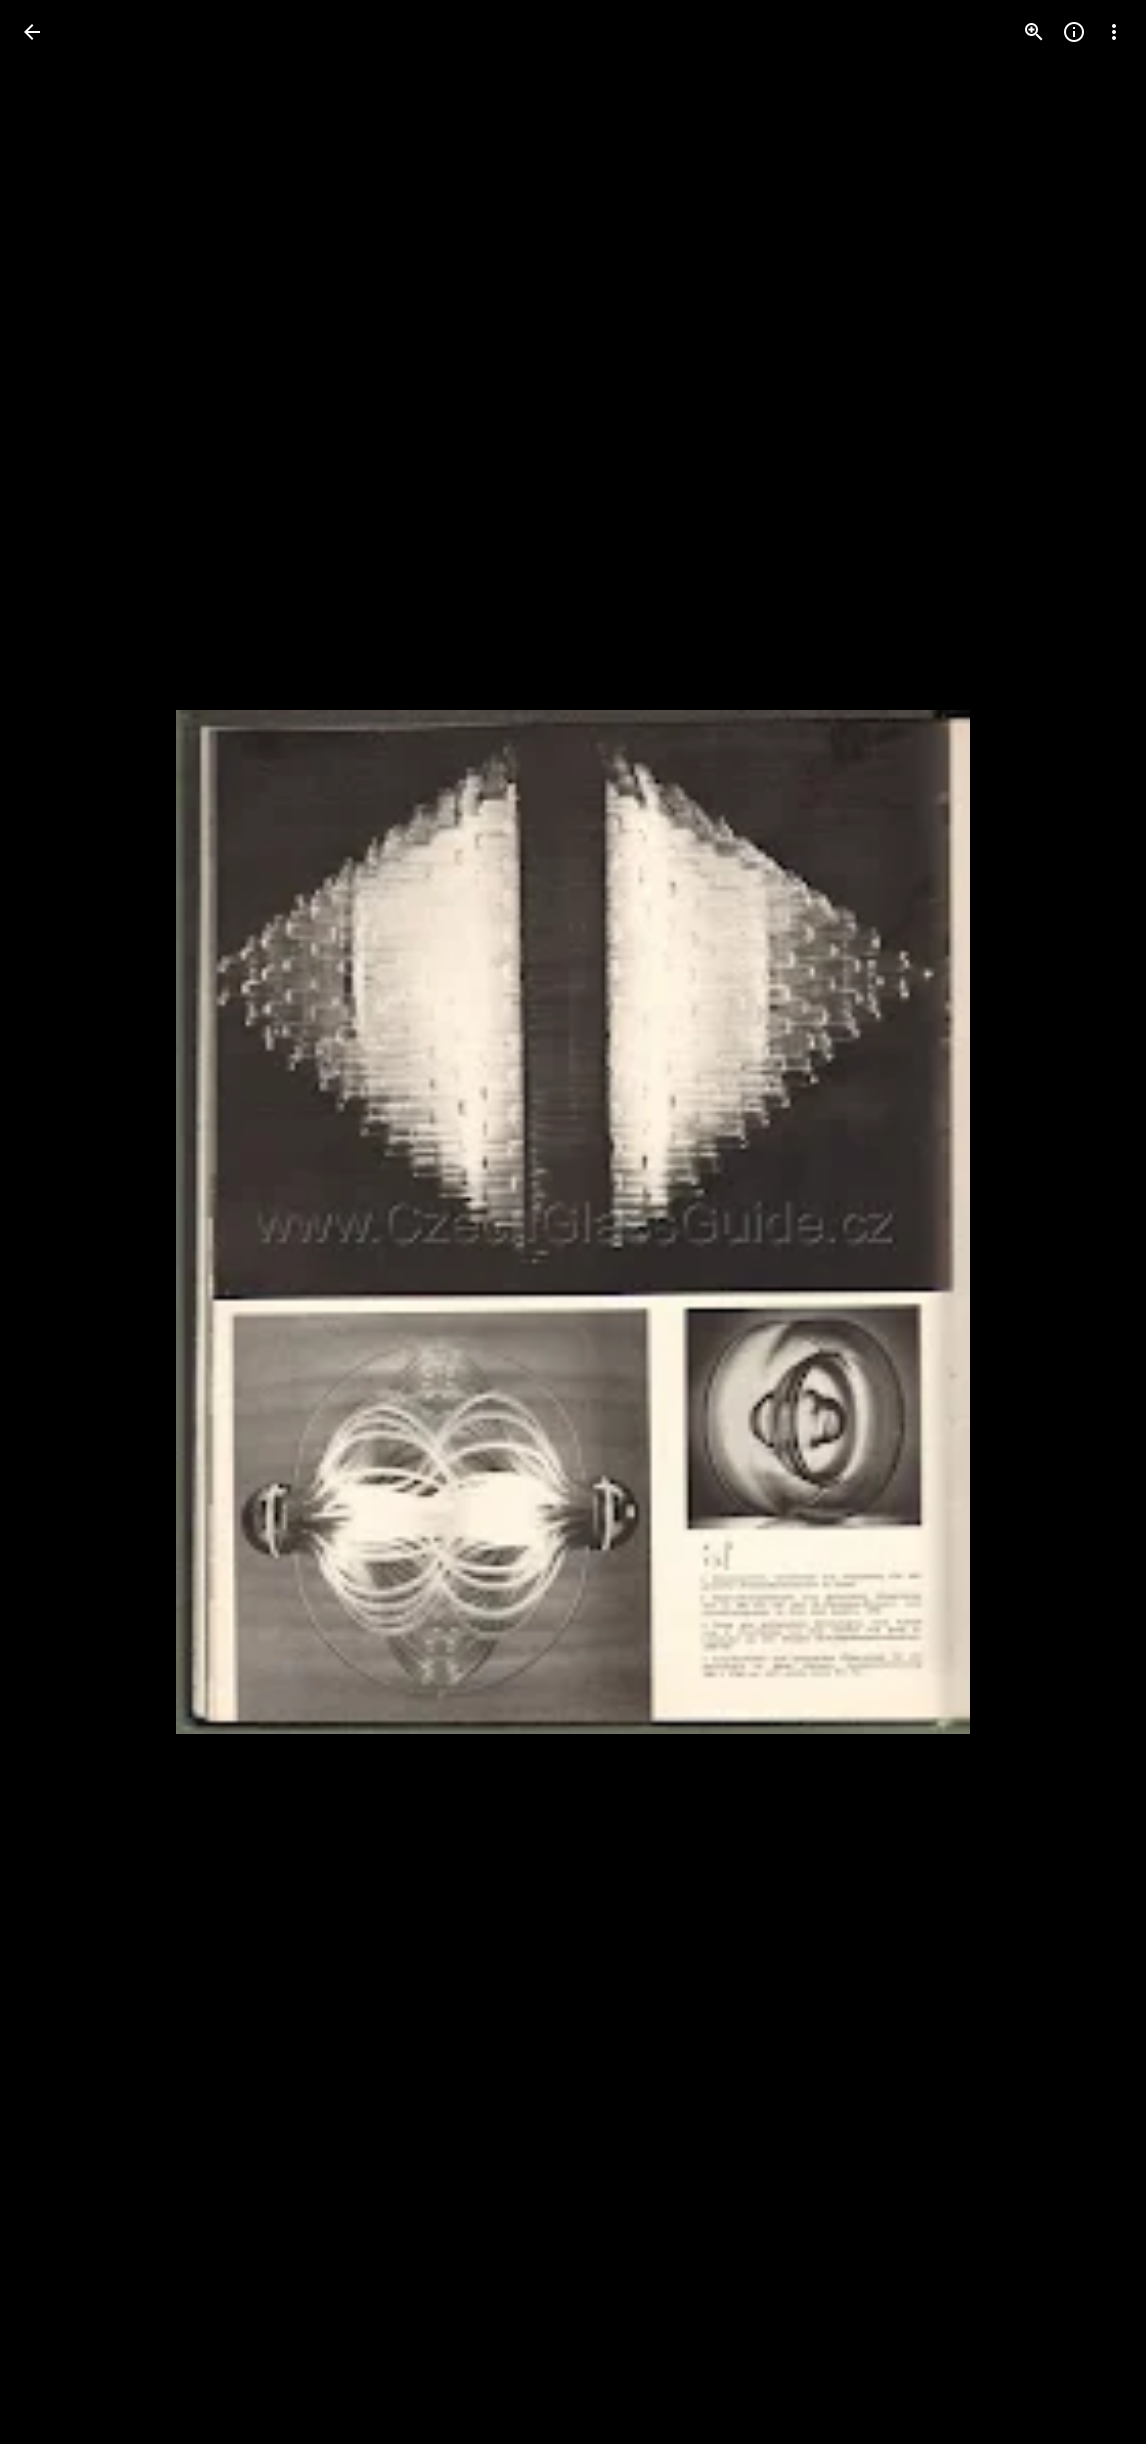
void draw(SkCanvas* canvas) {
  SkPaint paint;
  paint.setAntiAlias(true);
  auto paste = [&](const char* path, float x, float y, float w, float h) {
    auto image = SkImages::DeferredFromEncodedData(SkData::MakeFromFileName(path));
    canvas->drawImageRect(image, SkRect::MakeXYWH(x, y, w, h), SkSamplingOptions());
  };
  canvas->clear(0xff000000);
  paste("img/1.png", 24, 24, 16, 16);
  paste("img/2.png", 1025, 23, 18, 18);
  paste("img/3.png", 1064, 22, 20, 20);
  paste("img/4.png", 1112, 24, 4, 16);
  paste("img/5.png", 176, 710, 794, 1024);
}
